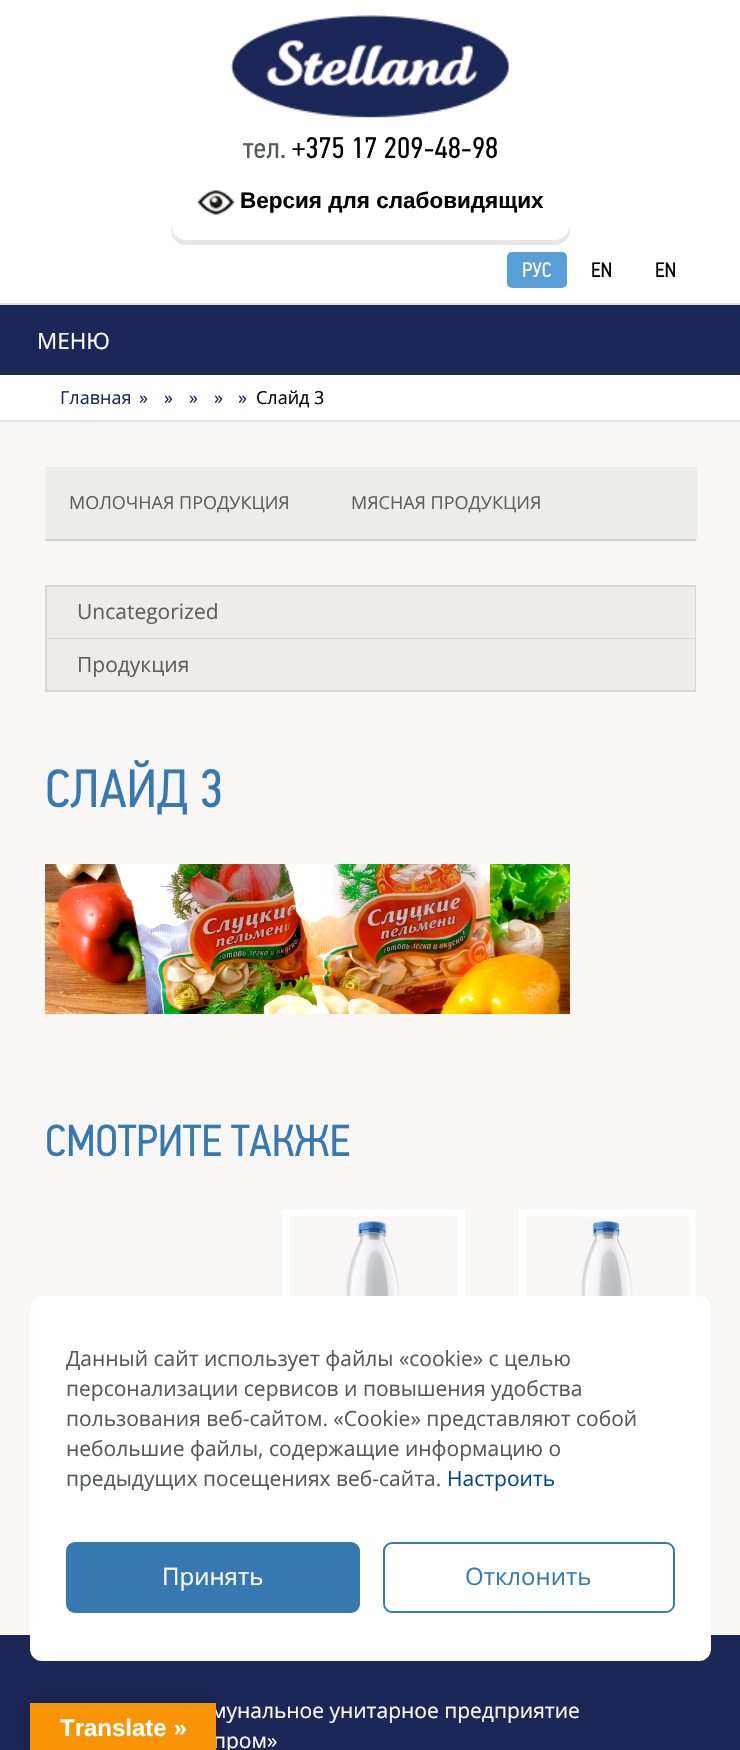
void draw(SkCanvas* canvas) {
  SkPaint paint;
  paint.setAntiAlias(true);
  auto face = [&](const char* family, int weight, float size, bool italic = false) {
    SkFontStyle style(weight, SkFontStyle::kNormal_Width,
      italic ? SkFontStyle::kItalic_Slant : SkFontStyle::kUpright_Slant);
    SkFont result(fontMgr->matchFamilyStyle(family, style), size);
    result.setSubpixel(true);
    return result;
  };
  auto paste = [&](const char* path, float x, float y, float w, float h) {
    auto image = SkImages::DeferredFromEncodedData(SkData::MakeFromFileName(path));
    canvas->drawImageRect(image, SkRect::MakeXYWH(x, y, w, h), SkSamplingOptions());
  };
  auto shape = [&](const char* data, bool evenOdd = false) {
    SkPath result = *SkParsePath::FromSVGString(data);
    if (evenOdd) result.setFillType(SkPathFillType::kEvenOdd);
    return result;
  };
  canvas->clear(0xfff8f7f6);
  paint.setColor(0xffffffff);
  canvas->drawRect(SkRect::MakeXYWH(0, 0, 740, 420), paint);
  paste("img/1.png", 231, 15, 279, 104);
  paint.setColor(0xffe6e6e6);
  canvas->drawPath(shape("M171 225V230C171 238 178 245 186 245H555C563 245 570 238 570 230V225C570 233 563 240 555 240H186C178 240 171 233 171 225Z"), paint);
  paste("img/2.png", 198, 190, 36, 25);
  paint.setColor(0xff589fd5);
  canvas->drawRoundRect(SkRect::MakeXYWH(507, 252, 60, 36), 5, 5, paint);
  {
    const struct { float x, y, w, h; SkColor color; } items[] = {
      {0, 303, 740, 2, 0xffe1e1e1},
      {0, 305, 740, 70, 0xff1b2757},
      {0, 420, 740, 2, 0xffe3e3e3},
      {47, 467, 648, 72, 0xffececeb},
      {695, 467, 2, 73, 0xffececeb},
      {45, 539, 651, 2, 0xffd0cfce},
      {45, 467, 2, 73, 0xffececeb},
    };
    for (auto [x, y, w, h, color] : items) {
      paint.setColor(color);
      canvas->drawRect(SkRect::MakeXYWH(x, y, w, h), paint);
    }
  }
  paint.setStroke(true);
  paint.setStrokeWidth(2);
  paint.setColor(0xffd7d7d6);
  canvas->drawRect(SkRect::MakeXYWH(46, 586, 649, 105), paint);
  paint.setStroke(false);
  {
    const struct { float x, y, w, h; SkColor color; } items[] = {
      {47, 587, 648, 51, 0xffedeceb},
      {47, 638, 648, 1, 0xffd7d7d6},
      {47, 639, 648, 51, 0xffedeceb},
    };
    for (auto [x, y, w, h, color] : items) {
      paint.setColor(color);
      canvas->drawRect(SkRect::MakeXYWH(x, y, w, h), paint);
    }
  }
  paste("img/3.png", 45, 864, 525, 150);
  paint.setStroke(true);
  paint.setStrokeWidth(8);
  paint.setColor(0xffffffff);
  canvas->drawRect(SkRect::MakeXYWH(286, 1213, 175, 189), paint);
  paste("img/4.png", 289, 1216, 169, 80);
  canvas->drawRect(SkRect::MakeXYWH(523, 1213, 169, 183), paint);
  paste("img/5.png", 526, 1216, 163, 80);
  paint.setStroke(false);
  paint.setColor(0xff1b2757);
  canvas->drawRect(SkRect::MakeXYWH(0, 1635, 740, 115), paint);
  paint.setColor(0xffffffff);
  canvas->drawRoundRect(SkRect::MakeXYWH(30, 1296, 681, 365), 12, 12, paint);
  paint.setColor(0xff3778b0);
  canvas->drawRoundRect(SkRect::MakeXYWH(66, 1542, 294, 71), 9, 9, paint);
  paint.setStroke(true);
  paint.setStrokeWidth(2);
  canvas->drawRoundRect(SkRect::MakeXYWH(384, 1543, 290, 69), 8, 8, paint);
  paint.setStroke(false);
  paint.setColor(0x4d000000);
  paint.setMaskFilter(SkMaskFilter::MakeBlur(kNormal_SkBlurStyle, 7));
  canvas->drawRect(SkRect::MakeXYWH(30, 1703, 186, 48), paint);
  paint.setMaskFilter(nullptr);
  auto f0 = face("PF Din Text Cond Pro", 400, 30);
  paint.setColor(0xff575859);
  canvas->drawString("тел.", 243, 158, f0, paint);
  paint.setColor(0xff000000);
  canvas->drawString("+375 17 209-48-98", 292, 158, f0, paint);
  auto f1 = face("Liberation Sans", 700, 22.5f);
  canvas->drawString("Версия для слабовидящих", 240, 208, f1, paint);
  auto f2 = face("PF Din Text Cond Pro", 400, 21);
  paint.setColor(0xffffffff);
  canvas->drawString("РУС", 522, 277, f2, paint);
  paint.setColor(0xff000000);
  canvas->drawString("EN", 591, 277, f2, paint);
  canvas->drawString("EN", 655, 277, f2, paint);
  auto f3 = face("Open Sans", 400, 22.5f);
  paint.setColor(0xffffffff);
  canvas->drawString("МЕНЮ", 37, 349, f3, paint);
  auto f4 = face("Open Sans", 400, 18);
  paint.setColor(0xff1b2757);
  {
    const struct { const char* s; float x, y; } items[] = {
      {"Главная", 60, 404},
      {"»", 139, 404},
      {"»", 164, 404},
      {"»", 189, 404},
      {"»", 214, 404},
      {"»", 238, 404},
    };
    for (auto [s, x, y] : items) {
      canvas->drawString(s, x, y, f4, paint);
    }
  }
  paint.setColor(0xff000000);
  canvas->drawString("Слайд 3", 256, 404, f4, paint);
  paint.setColor(0xff5e5e5e);
  canvas->drawString("МОЛОЧНАЯ ПРОДУКЦИЯ", 69, 509, f4, paint);
  canvas->drawString("МЯСНАЯ ПРОДУКЦИЯ", 351, 509, f4, paint);
  auto f5 = face("Open Sans", 400, 21);
  canvas->drawString("Uncategorized", 77, 619, f5, paint);
  canvas->drawString("Продукция", 77, 672, f5, paint);
  auto f6 = face("PF Din Text Cond Pro", 400, 54);
  paint.setColor(0xff3778b0);
  canvas->drawString("СЛАЙД 3", 45, 807, f6, paint);
  auto f7 = face("PF Din Text Cond Pro", 400, 45);
  canvas->drawString("СМОТРИТЕ ТАКЖЕ", 45, 1156, f7, paint);
  paint.setColor(0xff575859);
  {
    const struct { const char* s; float x, y; } items[] = {
      {"Данный сайт использует файлы «cookie» с целью", 66, 1366},
      {"персонализации сервисов и повышения удобства", 66, 1396},
      {"пользования веб-сайтом. «Cookie» представляют собой", 66, 1426},
      {"небольшие файлы, содержащие информацию о", 66, 1456},
      {"предыдущих посещениях веб-сайта.", 66, 1486},
    };
    for (auto [s, x, y] : items) {
      canvas->drawString(s, x, y, f5, paint);
    }
  }
  paint.setColor(0xff004b8d);
  canvas->drawString("Настроить", 447, 1486, f5, paint);
  auto f8 = face("Open Sans", 400, 24);
  paint.setColor(0xffffffff);
  canvas->drawString("Принять", 162, 1585, f8, paint);
  paint.setColor(0xff3778b0);
  canvas->drawString("Отклонить", 465, 1585, f8, paint);
  paint.setColor(0xffffffff);
  canvas->drawString("мунальное унитарное предприятие", 211, 1718, f5, paint);
  canvas->drawString("пром»", 213, 1748, f5, paint);
  paint.setColor(0xfff89406);
  canvas->drawRect(SkRect::MakeXYWH(30, 1703, 186, 47), paint);
  auto f9 = face("Liberation Sans", 700, 24);
  paint.setColor(0xffffffff);
  canvas->drawString("Translate »", 60, 1736, f9, paint);
}
